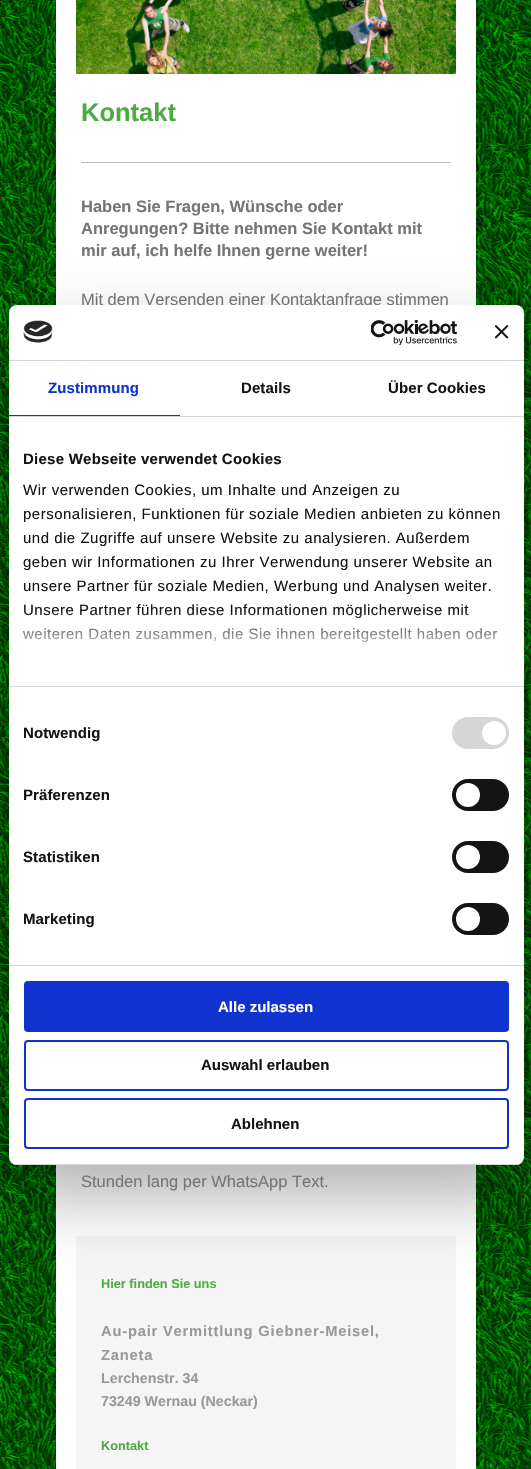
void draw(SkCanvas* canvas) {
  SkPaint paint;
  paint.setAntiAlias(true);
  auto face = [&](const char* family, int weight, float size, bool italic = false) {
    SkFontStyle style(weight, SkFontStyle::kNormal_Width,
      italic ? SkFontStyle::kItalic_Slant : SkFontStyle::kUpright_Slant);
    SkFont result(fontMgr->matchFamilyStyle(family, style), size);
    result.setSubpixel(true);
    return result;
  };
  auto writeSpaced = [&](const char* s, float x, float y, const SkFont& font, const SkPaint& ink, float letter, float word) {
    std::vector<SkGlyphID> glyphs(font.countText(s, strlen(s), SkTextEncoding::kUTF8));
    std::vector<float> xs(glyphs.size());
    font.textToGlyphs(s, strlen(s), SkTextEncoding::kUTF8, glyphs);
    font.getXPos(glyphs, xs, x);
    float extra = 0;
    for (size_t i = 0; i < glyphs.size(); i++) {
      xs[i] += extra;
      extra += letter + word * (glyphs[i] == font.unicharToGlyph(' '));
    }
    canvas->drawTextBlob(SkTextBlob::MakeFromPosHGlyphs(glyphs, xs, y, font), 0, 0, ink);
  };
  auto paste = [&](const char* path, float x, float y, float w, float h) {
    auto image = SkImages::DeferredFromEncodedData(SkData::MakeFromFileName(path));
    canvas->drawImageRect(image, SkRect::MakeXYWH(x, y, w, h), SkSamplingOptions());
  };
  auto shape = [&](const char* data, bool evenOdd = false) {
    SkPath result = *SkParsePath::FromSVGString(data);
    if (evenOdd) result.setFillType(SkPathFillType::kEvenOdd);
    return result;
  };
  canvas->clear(0xffffffff);
  paste("img/1.png", 0, 0, 531, 1469);
  paint.setColor(0xffffffff);
  canvas->drawRect(SkRect::MakeXYWH(56, 0, 420, 1469), paint);
  paste("img/2.png", 76, 0, 380, 74);
  paint.setColor(0xffbababa);
  canvas->drawRect(SkRect::MakeXYWH(81, 162, 370, 1), paint);
  paint.setColor(0xfff5f5f5);
  canvas->drawRect(SkRect::MakeXYWH(76, 1236, 380, 233), paint);
  paint.setColor(0x4d000000);
  paint.setMaskFilter(SkMaskFilter::MakeBlur(kNormal_SkBlurStyle, 34));
  canvas->drawRoundRect(SkRect::MakeXYWH(9, 337, 515, 860), 8, 8, paint);
  paint.setMaskFilter(nullptr);
  auto f0 = face("Liberation Sans", 700, 25.5f);
  paint.setColor(0xff4dab41);
  canvas->drawString("Kontakt", 81, 121, f0, paint);
  auto f1 = face("Liberation Sans", 700, 16.5f);
  paint.setColor(0xff757575);
  {
    const struct { const char* s; float x, y; } items[] = {
      {"Haben Sie Fragen, Wünsche oder", 81, 212},
      {"Anregungen? Bitte nehmen Sie Kontakt mit", 81, 234},
      {"mir auf, ich helfe Ihnen gerne weiter!", 81, 256},
    };
    for (auto [s, x, y] : items) {
      canvas->drawString(s, x, y, f1, paint);
    }
  }
  auto f2 = face("Liberation Sans", 400, 16.5f);
  canvas->drawString("Mit dem Versenden einer Kontaktanfrage stimmen", 81, 305, f2, paint);
  canvas->drawString("Stunden lang per WhatsApp Text.", 81, 1187, f2, paint);
  auto f3 = face("Liberation Sans", 700, 12.75f);
  paint.setColor(0xff4dab41);
  canvas->drawString("Hier finden Sie uns", 101, 1288, f3, paint);
  auto f4 = face("Liberation Sans", 700, 14.7f);
  paint.setColor(0xff999999);
  writeSpaced("Au-pair Vermittlung Giebner-Meisel,", 101, 1336, f4, paint, 0.8f, 0);
  writeSpaced("Zaneta", 101, 1360, f4, paint, 0.8f, 0);
  auto f5 = face("Liberation Sans", 700, 14.25f);
  canvas->drawString("Lerchenstr. 34", 101, 1383, f5, paint);
  canvas->drawString("73249 Wernau (Neckar)", 101, 1406, f5, paint);
  paint.setColor(0xff4dab41);
  canvas->drawString("Kontakt", 101, 1450, f3, paint);
  paint.setColor(0xffffffff);
  canvas->drawRoundRect(SkRect::MakeXYWH(9, 305, 515, 860), 8, 8, paint);
  paint.setColor(0xffd6d6d6);
  canvas->drawRect(SkRect::MakeXYWH(9, 360, 515, 1), paint);
  paste("img/3.png", 23, 320, 30, 23);
  paste("img/4.png", 371, 320, 87, 25);
  paste("img/5.png", 495, 325, 14, 14);
  canvas->drawRect(SkRect::MakeXYWH(9, 416, 515, 1), paint);
  paint.setColor(0xff1032cf);
  canvas->drawRect(SkRect::MakeXYWH(9, 415, 171, 1), paint);
  auto f6 = face("Liberation Sans", 700, 15);
  writeSpaced("Zustimmung", 48, 393, f6, paint, 0.1f, 0);
  paint.setColor(0xff141414);
  writeSpaced("Details", 241, 393, f6, paint, 0.1f, 0);
  writeSpaced("Über Cookies", 388, 393, f6, paint, 0.1f, 0);
  paint.setColor(0xffd6d6d6);
  canvas->drawRect(SkRect::MakeXYWH(9, 686, 515, 1), paint);
  paint.setColor(0xff141414);
  writeSpaced("Diese Webseite verwendet Cookies", 23, 464, f6, paint, 0.25f, 0);
  auto f7 = face("Liberation Sans", 400, 15);
  {
    const struct { const char* s; float x, y; } items[] = {
      {"Wir verwenden Cookies, um Inhalte und Anzeigen zu", 23, 495},
      {"personalisieren, Funktionen für soziale Medien anbieten zu können", 23, 519},
      {"und die Zugriffe auf unsere Website zu analysieren. Außerdem", 23, 543},
      {"geben wir Informationen zu Ihrer Verwendung unserer Website an", 23, 567},
      {"unsere Partner für soziale Medien, Werbung und Analysen weiter.", 23, 591},
      {"Unsere Partner führen diese Informationen möglicherweise mit", 23, 615},
      {"weiteren Daten zusammen, die Sie ihnen bereitgestellt haben oder", 23, 639},
    };
    for (auto [s, x, y] : items) {
      writeSpaced(s, x, y, f7, paint, 0.5f, 0);
    }
  }
  {
    const SkColor colors[] = {0xffffffff, 0xccffffff, 0x00ffffff};
    const float stops[] = {0, 0.5f, 1};
    const SkPoint ends[] = {{260, 686}, {260, 611}};
    paint.setShader(SkGradientShader::MakeLinear(ends, colors, stops, 3, SkTileMode::kClamp));
    paint.setAlpha(255);
  }
  canvas->drawRect(SkRect::MakeXYWH(23, 612, 474, 31), paint);
  paint.setShader(nullptr);
  paint.setColor(0xffd6d6d6);
  canvas->drawRect(SkRect::MakeXYWH(9, 965, 515, 1), paint);
  paint.setColor(0xff141414);
  writeSpaced("Notwendig", 23, 738, f6, paint, 0.1f, 0);
  paint.setColor(0xffd6d6d6);
  canvas->drawRoundRect(SkRect::MakeXYWH(452, 717, 57, 32), 16, 16, paint);
  paint.setColor(0xffffffff);
  canvas->drawCircle(494, 733, 12, paint);
  paint.setColor(0xff141414);
  writeSpaced("Präferenzen", 23, 800, f6, paint, 0.1f, 0);
  canvas->drawRoundRect(SkRect::MakeXYWH(452, 779, 57, 32), 16, 16, paint);
  paint.setColor(0xffffffff);
  canvas->drawCircle(468, 795, 12, paint);
  paint.setColor(0xff141414);
  writeSpaced("Statistiken", 23, 862, f6, paint, 0.1f, 0);
  canvas->drawRoundRect(SkRect::MakeXYWH(452, 841, 57, 32), 16, 16, paint);
  paint.setColor(0xffffffff);
  canvas->drawCircle(468, 857, 12, paint);
  paint.setColor(0xff141414);
  writeSpaced("Marketing", 23, 924, f6, paint, 0.1f, 0);
  canvas->drawRoundRect(SkRect::MakeXYWH(452, 903, 57, 32), 16, 16, paint);
  paint.setColor(0xffffffff);
  canvas->drawCircle(468, 919, 12, paint);
  canvas->save();
  canvas->clipPath(shape("M17 305H516C520.5 305 524 308.5 524 313V1157C524 1161.5 520.5 1165 516 1165H17C12.5 1165 9 1161.5 9 1157V313C9 308.5 12.5 305 17 305Z"), true);
  paint.setColor(0xffd6d6d6);
  canvas->drawRect(SkRect::MakeXYWH(9, 1164, 515, 1), paint);
  canvas->restore();
  paint.setColor(0xff1032cf);
  canvas->drawRoundRect(SkRect::MakeXYWH(25, 982, 483, 49), 3, 3, paint);
  paint.setStroke(true);
  paint.setStrokeWidth(2);
  canvas->drawRoundRect(SkRect::MakeXYWH(25, 982, 483, 49), 3, 3, paint);
  paint.setStroke(false);
  paint.setColor(0xffffffff);
  canvas->drawString("Alle zulassen", 218, 1012, f6, paint);
  paint.setStroke(true);
  paint.setColor(0xff1032cf);
  canvas->drawRoundRect(SkRect::MakeXYWH(25, 1041, 483, 49), 3, 3, paint);
  paint.setStroke(false);
  paint.setColor(0xff141414);
  canvas->drawString("Auswahl erlauben", 201, 1070, f6, paint);
  paint.setStroke(true);
  paint.setColor(0xff1032cf);
  canvas->drawRoundRect(SkRect::MakeXYWH(25, 1099, 483, 49), 3, 3, paint);
  paint.setStroke(false);
  paint.setColor(0xff141414);
  canvas->drawString("Ablehnen", 231, 1129, f6, paint);
}
